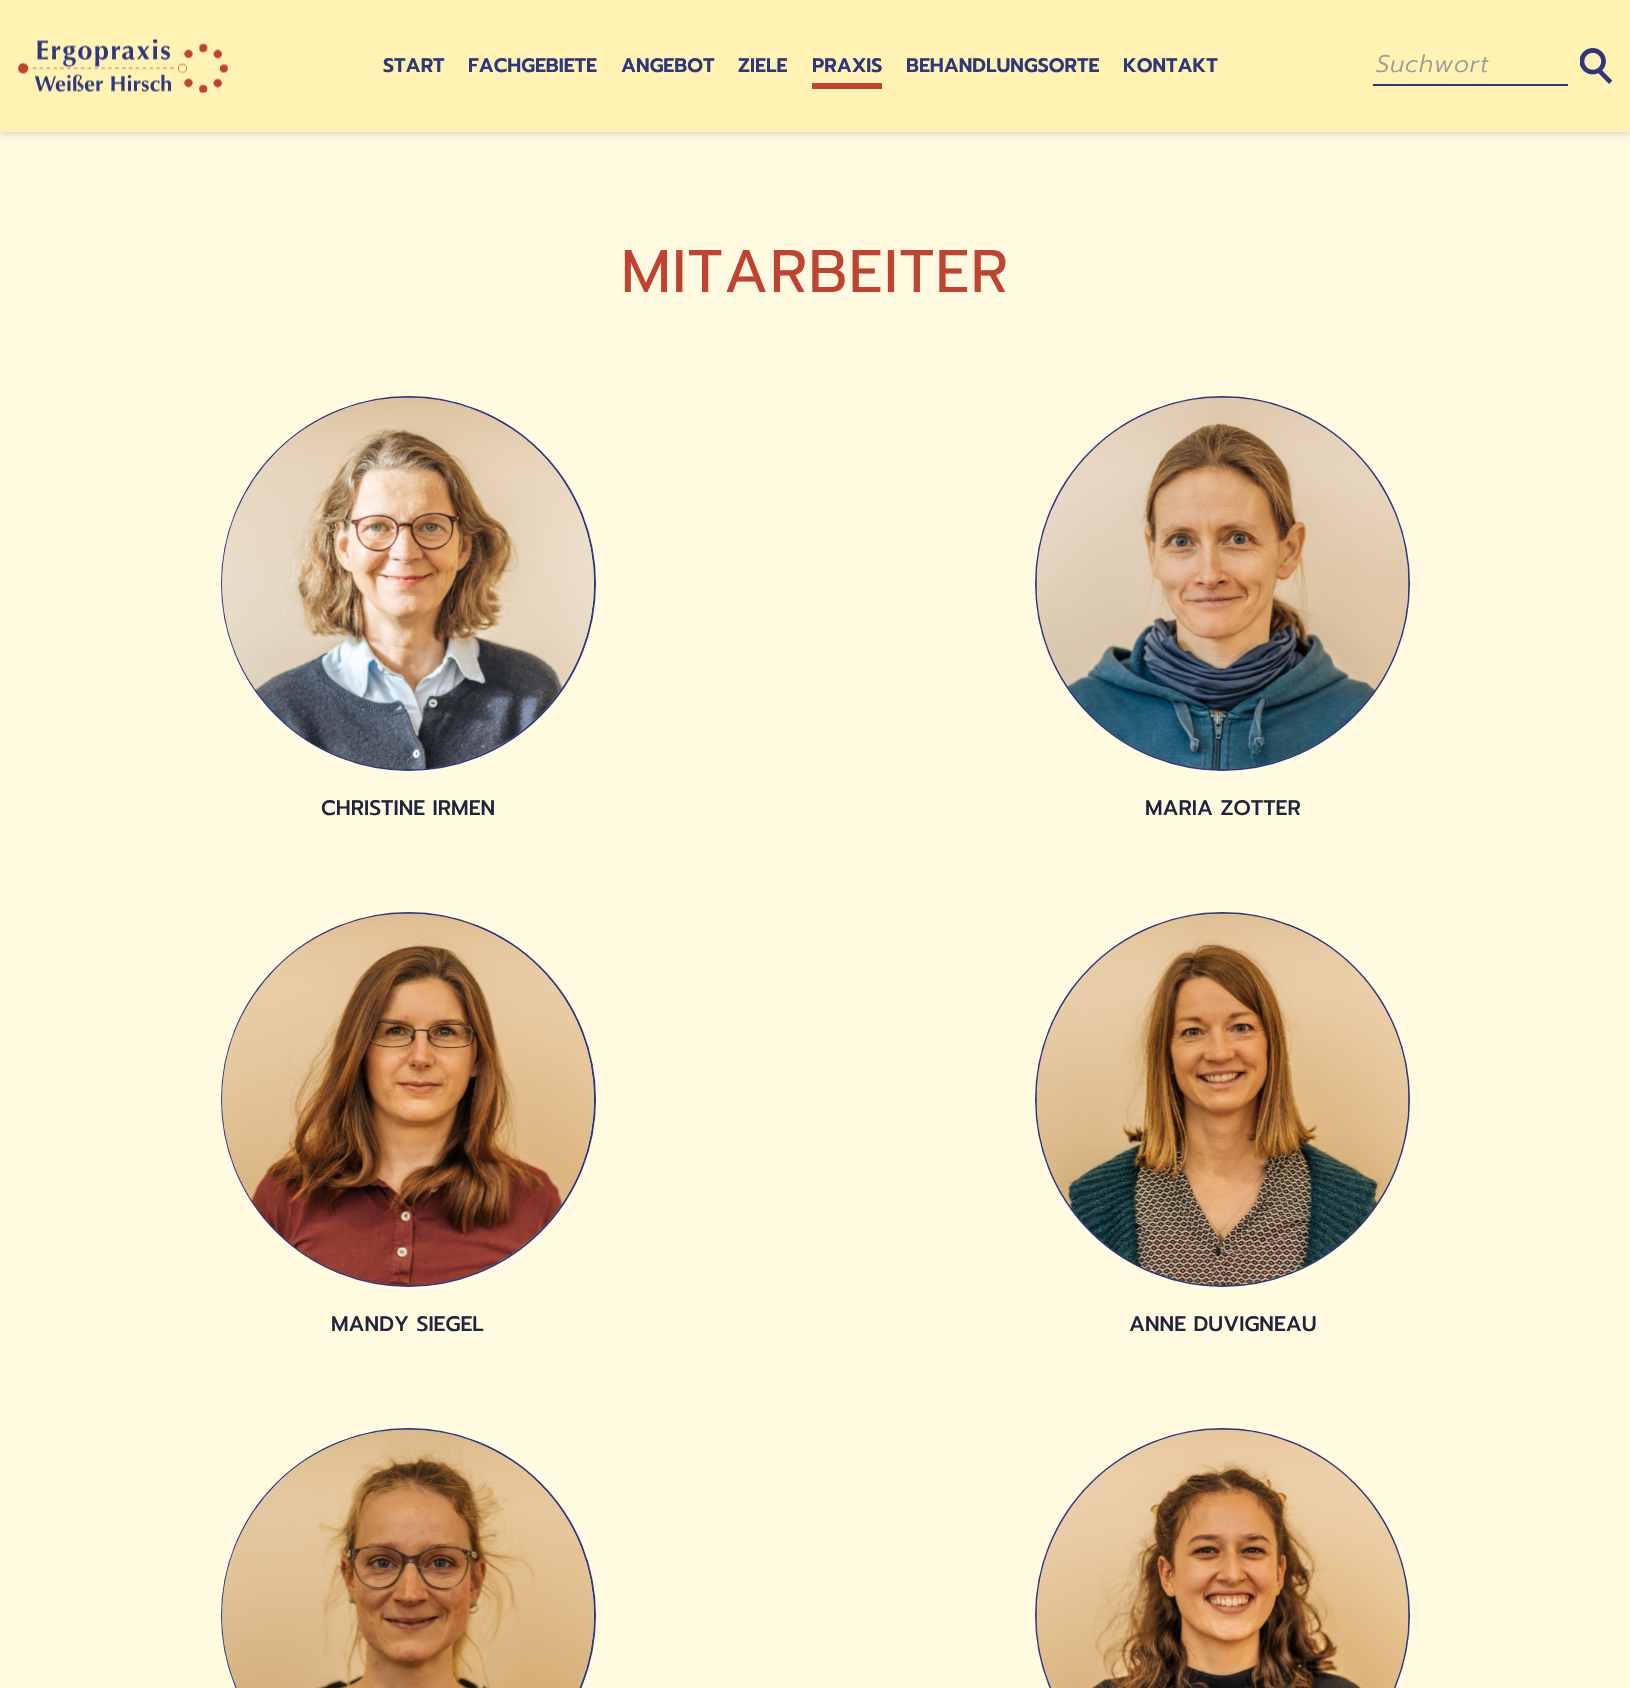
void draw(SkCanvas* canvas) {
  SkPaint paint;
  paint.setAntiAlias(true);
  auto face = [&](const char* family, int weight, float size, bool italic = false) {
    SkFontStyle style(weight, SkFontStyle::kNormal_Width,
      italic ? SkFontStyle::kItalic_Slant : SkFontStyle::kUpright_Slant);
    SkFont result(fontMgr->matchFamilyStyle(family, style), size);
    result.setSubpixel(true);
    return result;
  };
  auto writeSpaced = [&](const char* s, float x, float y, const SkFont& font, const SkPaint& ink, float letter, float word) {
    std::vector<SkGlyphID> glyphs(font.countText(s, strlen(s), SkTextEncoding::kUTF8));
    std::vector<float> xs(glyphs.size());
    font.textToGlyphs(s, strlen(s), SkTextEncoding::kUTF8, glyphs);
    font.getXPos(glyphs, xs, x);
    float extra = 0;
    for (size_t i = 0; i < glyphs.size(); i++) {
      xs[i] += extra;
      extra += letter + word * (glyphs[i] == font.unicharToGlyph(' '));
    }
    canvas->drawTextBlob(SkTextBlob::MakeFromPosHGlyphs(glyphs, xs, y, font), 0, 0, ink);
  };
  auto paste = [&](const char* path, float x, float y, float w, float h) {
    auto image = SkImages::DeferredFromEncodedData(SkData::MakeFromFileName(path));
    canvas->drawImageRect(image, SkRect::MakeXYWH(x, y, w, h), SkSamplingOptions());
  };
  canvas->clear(0xfffffae0);
  paint.setColor(0x4d333333);
  paint.setMaskFilter(SkMaskFilter::MakeBlur(kNormal_SkBlurStyle, 4.5f));
  canvas->drawRect(SkRect::MakeXYWH(0, 0, 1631, 132), paint);
  paint.setMaskFilter(nullptr);
  paint.setColor(0xfffff2b2);
  canvas->drawRect(SkRect::MakeXYWH(0, 0, 1630, 132), paint);
  paste("img/1.png", 18, 39, 210, 55);
  paint.setColor(0xffc04231);
  canvas->drawRect(SkRect::MakeXYWH(812, 83, 70, 6), paint);
  paint.setColor(0xff2c377d);
  canvas->drawRect(SkRect::MakeXYWH(1373, 84, 195, 2), paint);
  paste("img/2.png", 1580, 48, 33, 36);
  paint.setStroke(true);
  paint.setStrokeWidth(2);
  canvas->drawCircle(408.5f, 583.5f, 186.5f, paint);
  paste("img/3.png", 222, 397, 372, 373);
  canvas->drawCircle(1222.5f, 583.5f, 186.5f, paint);
  paste("img/4.png", 1036, 397, 373, 373);
  canvas->drawCircle(408.5f, 1099.5f, 186.5f, paint);
  paste("img/5.png", 222, 913, 372, 373);
  canvas->drawCircle(1222.5f, 1099.5f, 186.5f, paint);
  paste("img/6.png", 1036, 913, 373, 373);
  canvas->drawCircle(408.5f, 1615.5f, 186.5f, paint);
  paste("img/7.png", 222, 1429, 372, 259);
  canvas->drawCircle(1222.5f, 1615.5f, 186.5f, paint);
  paste("img/8.png", 1036, 1429, 373, 259);
  auto f0 = face("Prompt", 600, 19.5f);
  paint.setStroke(false);
  {
    const struct { const char* s; float x, y; } items[] = {
      {"START", 383, 72},
      {"FACHGEBIETE", 468, 72},
      {"ANGEBOT", 621, 72},
      {"ZIELE", 738, 72},
      {"PRAXIS", 812, 72},
      {"BEHANDLUNGSORTE", 906, 72},
      {"KONTAKT", 1123, 72},
    };
    for (auto [s, x, y] : items) {
      canvas->drawString(s, x, y, f0, paint);
    }
  }
  auto f1 = face("Prompt", 300, 24, true);
  paint.setColor(0xff9e9c9a);
  writeSpaced("Suchwort", 1376, 72, f1, paint, 0.75f, 0);
  auto f2 = face("Prompt", 400, 60);
  paint.setColor(0xffc04231);
  writeSpaced("MITARBEITER", 621, 292, f2, paint, 1.25f, 0);
  auto f3 = face("Prompt", 500, 21);
  paint.setColor(0xff20253d);
  {
    const struct { const char* s; float x, y; } items[] = {
      {"CHRISTINE IRMEN", 321, 815},
      {"MARIA ZOTTER", 1145, 815},
      {"MANDY SIEGEL", 331, 1331},
      {"ANNE DUVIGNEAU", 1129, 1331},
    };
    for (auto [s, x, y] : items) {
      canvas->drawString(s, x, y, f3, paint);
    }
  }
}
